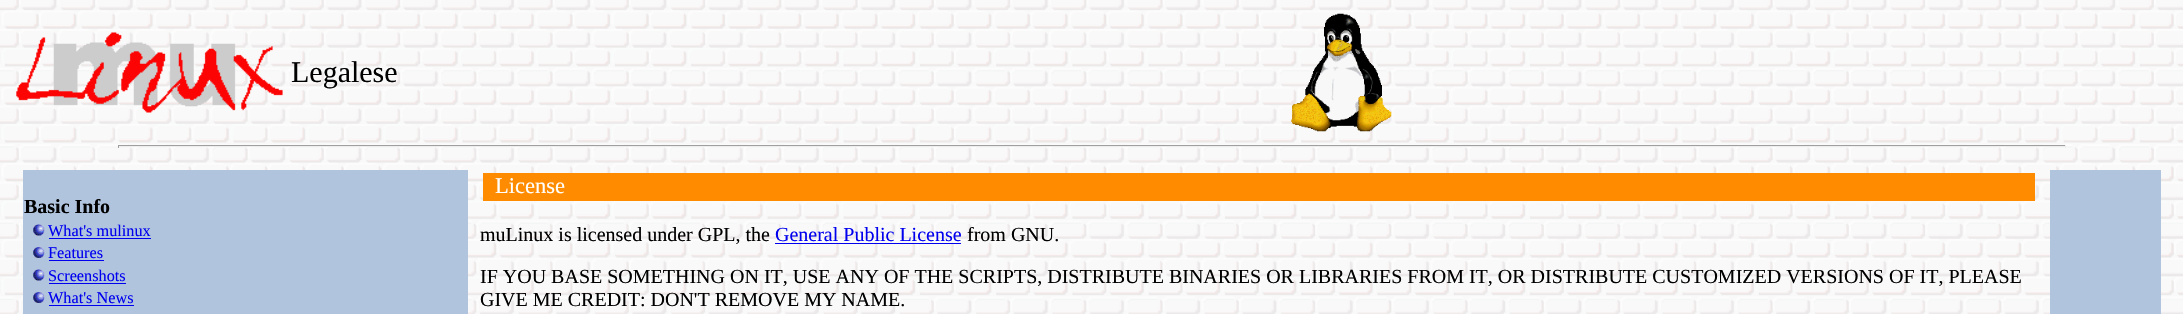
void draw(SkCanvas* canvas) {
  SkPaint paint;
  paint.setAntiAlias(true);
  auto face = [&](const char* family, int weight, float size, bool italic = false) {
    SkFontStyle style(weight, SkFontStyle::kNormal_Width,
      italic ? SkFontStyle::kItalic_Slant : SkFontStyle::kUpright_Slant);
    SkFont result(fontMgr->matchFamilyStyle(family, style), size);
    result.setSubpixel(true);
    return result;
  };
  auto paste = [&](const char* path, float x, float y, float w, float h) {
    auto image = SkImages::DeferredFromEncodedData(SkData::MakeFromFileName(path));
    canvas->drawImageRect(image, SkRect::MakeXYWH(x, y, w, h), SkSamplingOptions());
  };
  canvas->clear(0xffffffff);
  paste("img/1.png", 0, 0, 2183, 314);
  paste("img/2.png", 16, 32, 267, 81);
  paste("img/3.png", 1291, 13, 101, 119);
  {
    const struct { float x, y, w, h; SkColor color; } items[] = {
      {118, 145, 1948, 1, 0xff9f9f9f},
      {2065, 145, 1, 3, 0xffeeeeee},
      {118, 146, 1948, 1, 0xffeeeeee},
      {118, 145, 1, 3, 0xff9f9f9f},
      {23, 170, 445, 144, 0xffb0c4de},
    };
    for (auto [x, y, w, h, color] : items) {
      paint.setColor(color);
      canvas->drawRect(SkRect::MakeXYWH(x, y, w, h), paint);
    }
  }
  paste("img/4.png", 33, 224, 12, 12);
  paint.setColor(0xff0000ee);
  canvas->drawRect(SkRect::MakeXYWH(49, 238, 102, 1), paint);
  paste("img/5.png", 33, 247, 12, 11);
  canvas->drawRect(SkRect::MakeXYWH(49, 260, 55, 1), paint);
  paste("img/4.png", 33, 269, 12, 12);
  canvas->drawRect(SkRect::MakeXYWH(49, 283, 77, 1), paint);
  paste("img/5.png", 33, 292, 12, 11);
  {
    const struct { float x, y, w, h; SkColor color; } items[] = {
      {49, 305, 85, 1, 0xff0000ee},
      {483, 173, 1552, 28, 0xffff8c00},
      {775, 243, 186, 1, 0xff0000ee},
      {2050, 170, 111, 144, 0xffb0c4de},
    };
    for (auto [x, y, w, h, color] : items) {
      paint.setColor(color);
      canvas->drawRect(SkRect::MakeXYWH(x, y, w, h), paint);
    }
  }
  auto f0 = face("Liberation Serif", 400, 30);
  paint.setColor(0xff000000);
  canvas->drawString("Legalese", 291, 82, f0, paint);
  auto f1 = face("Liberation Serif", 700, 20);
  canvas->drawString("Basic Info", 24, 213, f1, paint);
  auto f2 = face("Liberation Serif", 400, 16.25f);
  paint.setColor(0xff0000ee);
  {
    const struct { const char* s; float x, y; } items[] = {
      {"What's mulinux", 48, 236},
      {"Features", 48, 258},
      {"Screenshots", 48, 281},
      {"What's News", 48, 303},
    };
    for (auto [s, x, y] : items) {
      canvas->drawString(s, x, y, f2, paint);
    }
  }
  auto f3 = face("Liberation Serif", 400, 22.5f);
  paint.setColor(0xffffffff);
  canvas->drawString("License", 495, 193, f3, paint);
  auto f4 = face("Liberation Serif", 400, 20);
  paint.setColor(0xff000000);
  canvas->drawString("muLinux is licensed under GPL, the", 480, 241, f4, paint);
  paint.setColor(0xff0000ee);
  canvas->drawString("General Public License", 775, 241, f4, paint);
  paint.setColor(0xff000000);
  {
    const struct { const char* s; float x, y; } items[] = {
      {"from GNU.", 967, 241},
      {"IF YOU BASE SOMETHING ON IT, USE ANY OF THE SCRIPTS, DISTRIBUTE BINARIES OR LIBRARIES FROM IT, OR DISTRIBUTE CUSTOMIZED VERSIONS OF IT, PLEASE", 480, 283},
      {"GIVE ME CREDIT: DON'T REMOVE MY NAME.", 480, 306},
    };
    for (auto [s, x, y] : items) {
      canvas->drawString(s, x, y, f4, paint);
    }
  }
}
